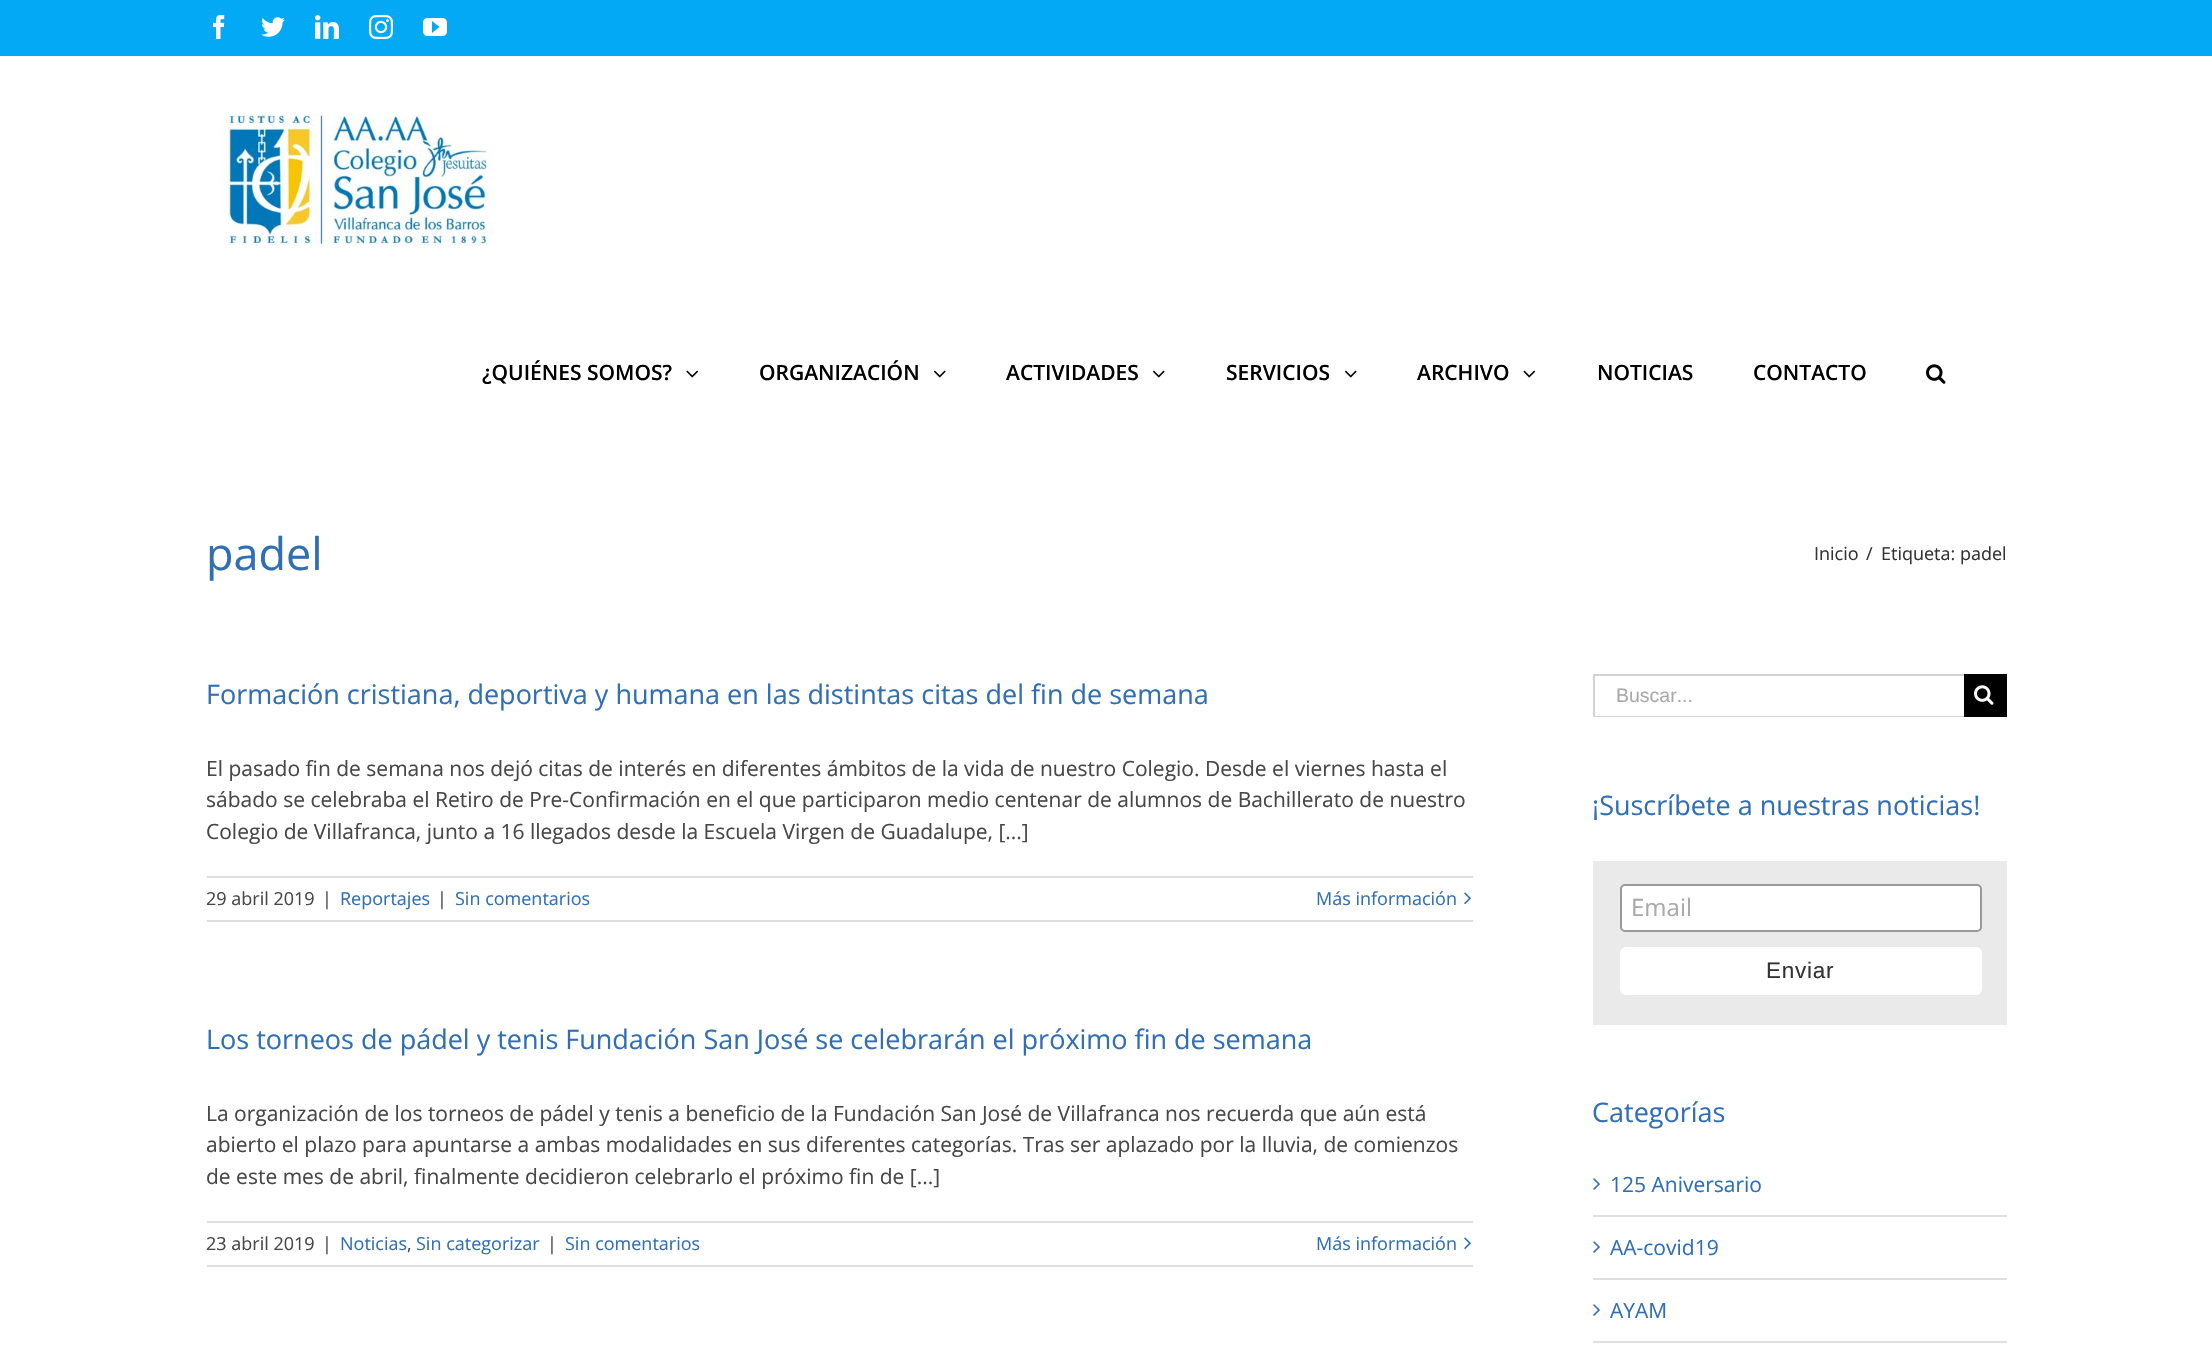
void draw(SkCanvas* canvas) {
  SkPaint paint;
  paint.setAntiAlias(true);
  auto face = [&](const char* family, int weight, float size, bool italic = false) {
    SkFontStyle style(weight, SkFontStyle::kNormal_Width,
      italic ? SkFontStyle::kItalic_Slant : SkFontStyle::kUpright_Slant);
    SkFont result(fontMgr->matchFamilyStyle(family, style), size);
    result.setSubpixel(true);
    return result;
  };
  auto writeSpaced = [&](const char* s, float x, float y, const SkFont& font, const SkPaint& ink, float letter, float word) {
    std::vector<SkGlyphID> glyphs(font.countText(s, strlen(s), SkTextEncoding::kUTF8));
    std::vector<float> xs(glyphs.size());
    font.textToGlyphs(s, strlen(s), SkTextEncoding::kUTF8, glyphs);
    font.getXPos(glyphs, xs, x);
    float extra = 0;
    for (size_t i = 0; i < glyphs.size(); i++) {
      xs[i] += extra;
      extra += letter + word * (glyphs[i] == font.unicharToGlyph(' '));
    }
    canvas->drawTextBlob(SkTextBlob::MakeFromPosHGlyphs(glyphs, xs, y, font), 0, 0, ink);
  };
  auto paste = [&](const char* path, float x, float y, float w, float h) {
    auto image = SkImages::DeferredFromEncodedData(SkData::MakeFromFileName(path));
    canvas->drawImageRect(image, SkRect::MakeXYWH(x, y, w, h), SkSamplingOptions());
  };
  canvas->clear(0xffffffff);
  paint.setColor(0xff03a9f4);
  canvas->drawRect(SkRect::MakeXYWH(0, 0, 2212, 56), paint);
  paste("img/1.png", 213, 15, 12, 24);
  paste("img/2.png", 261, 17, 24, 20);
  paste("img/3.png", 315, 15, 24, 24);
  paste("img/4.png", 369, 15, 24, 24);
  paste("img/5.png", 423, 18, 24, 18);
  paste("img/6.png", 219, 113, 276, 134);
  paste("img/7.png", 686, 370, 13, 8);
  paste("img/8.png", 934, 370, 12, 8);
  paste("img/8.png", 1153, 370, 12, 8);
  paste("img/8.png", 1345, 370, 12, 8);
  paste("img/7.png", 1523, 370, 13, 8);
  paste("img/9.png", 1926, 364, 20, 20);
  paint.setColor(0xffe0dede);
  canvas->drawRect(SkRect::MakeXYWH(207, 876, 1266, 2), paint);
  canvas->drawRect(SkRect::MakeXYWH(207, 920, 1266, 2), paint);
  paste("img/10.png", 1464, 892, 7, 13);
  canvas->drawRect(SkRect::MakeXYWH(207, 1221, 1266, 2), paint);
  canvas->drawRect(SkRect::MakeXYWH(207, 1265, 1266, 2), paint);
  paste("img/10.png", 1464, 1237, 7, 13);
  {
    const struct { float x, y, w, h; SkColor color; } items[] = {
      {1593, 674, 371, 2, 0xffd2d2d2},
      {1593, 716, 371, 1, 0xffd2d2d2},
      {1593, 674, 2, 43, 0xffd2d2d2},
      {1964, 674, 43, 43, 0xff000000},
    };
    for (auto [x, y, w, h, color] : items) {
      paint.setColor(color);
      canvas->drawRect(SkRect::MakeXYWH(x, y, w, h), paint);
    }
  }
  paste("img/11.png", 1974, 685, 20, 20);
  paint.setColor(0xffebeaea);
  canvas->drawRect(SkRect::MakeXYWH(1593, 861, 414, 164), paint);
  paint.setColor(0xffffffff);
  canvas->drawRoundRect(SkRect::MakeXYWH(1621, 885, 360, 46), 4, 4, paint);
  paint.setStroke(true);
  paint.setStrokeWidth(2);
  paint.setColor(0xff999999);
  canvas->drawRoundRect(SkRect::MakeXYWH(1621, 885, 360, 46), 4, 4, paint);
  paint.setStroke(false);
  paint.setColor(0xffffffff);
  canvas->drawRoundRect(SkRect::MakeXYWH(1620, 947, 362, 48), 6, 6, paint);
  paint.setColor(0xffe0dede);
  canvas->drawRect(SkRect::MakeXYWH(1593, 1215, 414, 2), paint);
  paste("img/12.png", 1593, 1178, 7, 12);
  canvas->drawRect(SkRect::MakeXYWH(1593, 1278, 414, 2), paint);
  paste("img/12.png", 1593, 1241, 7, 12);
  canvas->drawRect(SkRect::MakeXYWH(1593, 1341, 414, 2), paint);
  paste("img/12.png", 1593, 1304, 7, 12);
  auto f0 = face("Open Sans", 600, 21);
  paint.setColor(0xff000000);
  {
    const struct { const char* s; float x, y; } items[] = {
      {"¿QUIÉNES SOMOS?", 482, 380},
      {"ORGANIZACIÓN", 759, 380},
      {"ACTIVIDADES", 1006, 380},
      {"SERVICIOS", 1226, 380},
      {"ARCHIVO", 1417, 380},
      {"NOTICIAS", 1597, 380},
      {"CONTACTO", 1753, 380},
    };
    for (auto [s, x, y] : items) {
      canvas->drawString(s, x, y, f0, paint);
    }
  }
  auto f1 = face("Open Sans", 400, 45);
  paint.setColor(0xff306fb5);
  canvas->drawString("padel", 206, 570, f1, paint);
  auto f2 = face("Open Sans", 400, 18);
  paint.setColor(0xff333333);
  {
    const struct { const char* s; float x, y; } items[] = {
      {"Inicio", 1814, 560},
      {"/", 1866, 560},
      {"Etiqueta: padel", 1881, 560},
    };
    for (auto [s, x, y] : items) {
      canvas->drawString(s, x, y, f2, paint);
    }
  }
  auto f3 = face("Open Sans", 400, 27);
  paint.setColor(0xff306fb5);
  canvas->drawString("Formación cristiana, deportiva y humana en las distintas citas del fin de semana", 206, 704, f3, paint);
  auto f4 = face("Open Sans", 400, 21);
  paint.setColor(0xff474747);
  {
    const struct { const char* s; float x, y; } items[] = {
      {"El pasado fin de semana nos dejó citas de interés en diferentes ámbitos de la vida de nuestro Colegio. Desde el viernes hasta el", 206, 776},
      {"sábado se celebraba el Retiro de Pre-Confirmación en el que participaron medio centenar de alumnos de Bachillerato de nuestro", 206, 807},
      {"Colegio de Villafranca, junto a 16 llegados desde la Escuela Virgen de Guadalupe, [...]", 206, 839},
    };
    for (auto [s, x, y] : items) {
      canvas->drawString(s, x, y, f4, paint);
    }
  }
  canvas->drawString("29 abril 2019", 206, 905, f2, paint);
  canvas->drawString("|", 322, 905, f2, paint);
  paint.setColor(0xff306fb5);
  canvas->drawString("Reportajes", 340, 905, f2, paint);
  paint.setColor(0xff474747);
  canvas->drawString("|", 437, 905, f2, paint);
  paint.setColor(0xff306fb5);
  canvas->drawString("Sin comentarios", 455, 905, f2, paint);
  canvas->drawString("Más información", 1316, 905, f2, paint);
  canvas->drawString("Los torneos de pádel y tenis Fundación San José se celebrarán el próximo fin de semana", 206, 1049, f3, paint);
  paint.setColor(0xff474747);
  {
    const struct { const char* s; float x, y; } items[] = {
      {"La organización de los torneos de pádel y tenis a beneficio de la Fundación San José de Villafranca nos recuerda que aún está", 206, 1121},
      {"abierto el plazo para apuntarse a ambas modalidades en sus diferentes categorías. Tras ser aplazado por la lluvia, de comienzos", 206, 1152},
      {"de este mes de abril, finalmente decidieron celebrarlo el próximo fin de [...]", 206, 1184},
    };
    for (auto [s, x, y] : items) {
      canvas->drawString(s, x, y, f4, paint);
    }
  }
  canvas->drawString("23 abril 2019", 206, 1250, f2, paint);
  canvas->drawString("|", 322, 1250, f2, paint);
  paint.setColor(0xff306fb5);
  canvas->drawString("Noticias", 340, 1250, f2, paint);
  paint.setColor(0xff474747);
  canvas->drawString(",", 407, 1250, f2, paint);
  paint.setColor(0xff306fb5);
  canvas->drawString("Sin categorizar", 416, 1250, f2, paint);
  paint.setColor(0xff474747);
  canvas->drawString("|", 547, 1250, f2, paint);
  paint.setColor(0xff306fb5);
  canvas->drawString("Sin comentarios", 565, 1250, f2, paint);
  canvas->drawString("Más información", 1316, 1250, f2, paint);
  auto f5 = face("Liberation Sans", 400, 19.5f);
  paint.setColor(0xffaaa9a9);
  canvas->drawString("Buscar...", 1616, 702, f5, paint);
  paint.setColor(0xff306fb5);
  canvas->drawString("¡Suscríbete a nuestras noticias!", 1592, 815, f3, paint);
  auto f6 = face("Open Sans", 400, 24);
  paint.setColor(0xffaaa9a9);
  canvas->drawString("Email", 1631, 916, f6, paint);
  auto f7 = face("Liberation Sans", 400, 22.5f);
  paint.setColor(0xff333333);
  writeSpaced("Enviar", 1766, 978, f7, paint, 0.75f, 0);
  paint.setColor(0xff306fb5);
  canvas->drawString("Categorías", 1592, 1122, f3, paint);
  {
    const struct { const char* s; float x, y; } items[] = {
      {"125 Aniversario", 1610, 1192},
      {"AA-covid19", 1610, 1255},
      {"AYAM", 1610, 1318},
    };
    for (auto [s, x, y] : items) {
      canvas->drawString(s, x, y, f4, paint);
    }
  }
}
